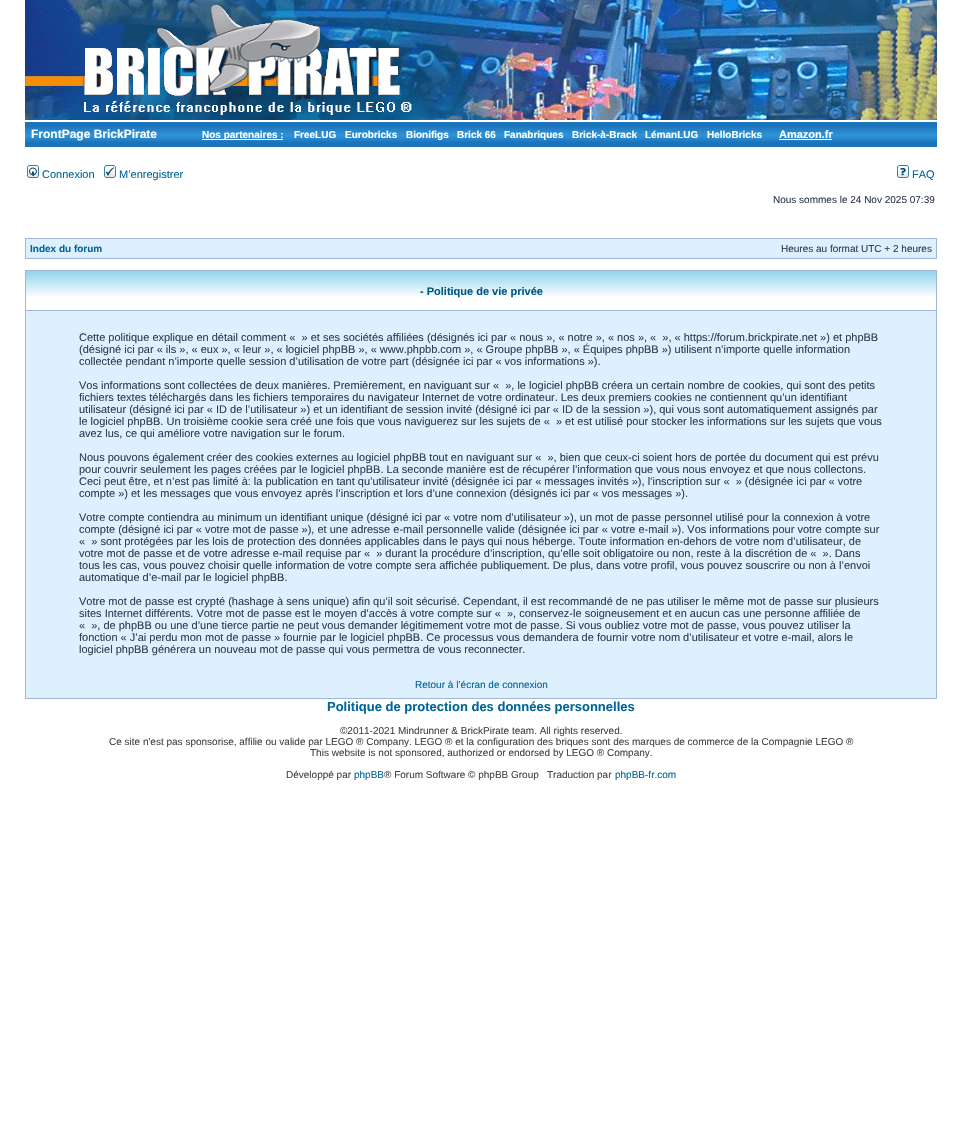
void draw(SkCanvas* canvas) {
  SkPaint paint;
  paint.setAntiAlias(true);
  auto face = [&](const char* family, int weight, float size, bool italic = false) {
    SkFontStyle style(weight, SkFontStyle::kNormal_Width,
      italic ? SkFontStyle::kItalic_Slant : SkFontStyle::kUpright_Slant);
    SkFont result(fontMgr->matchFamilyStyle(family, style), size);
    result.setSubpixel(true);
    return result;
  };
  auto paste = [&](const char* path, float x, float y, float w, float h) {
    auto image = SkImages::DeferredFromEncodedData(SkData::MakeFromFileName(path));
    canvas->drawImageRect(image, SkRect::MakeXYWH(x, y, w, h), SkSamplingOptions());
  };
  canvas->clear(0xffffffff);
  paste("img/1.png", 25, 0, 912, 120);
  paste("img/2.png", 25, 122, 912, 25);
  paint.setColor(0xffffffff);
  canvas->drawRect(SkRect::MakeXYWH(202, 139, 81, 1), paint);
  canvas->drawRect(SkRect::MakeXYWH(779, 139, 53, 1), paint);
  paste("img/3.png", 27, 165, 12, 13);
  paste("img/4.png", 104, 165, 12, 13);
  paste("img/5.png", 897, 165, 12, 13);
  {
    const struct { float x, y, w, h; SkColor color; } items[] = {
      {25, 238, 912, 21, 0xffa0b8d7},
      {26, 239, 910, 19, 0xffdef0fe},
      {25, 270, 912, 429, 0xffa0b8d7},
      {26, 296, 910, 14, 0xffffffff},
    };
    for (auto [x, y, w, h, color] : items) {
      paint.setColor(color);
      canvas->drawRect(SkRect::MakeXYWH(x, y, w, h), paint);
    }
  }
  paste("img/6.png", 26, 271, 910, 25);
  paint.setColor(0xffdef0fe);
  canvas->drawRect(SkRect::MakeXYWH(26, 311, 910, 387), paint);
  auto f0 = face("Liberation Sans", 700, 12);
  paint.setColor(0xffffffff);
  canvas->drawString("FrontPage BrickPirate", 31, 138, f0, paint);
  auto f1 = face("Liberation Sans", 700, 10);
  {
    const struct { const char* s; float x, y; } items[] = {
      {"Nos partenaires :", 202, 138},
      {"FreeLUG", 294, 138},
      {"Eurobricks", 345, 138},
      {"Bionifigs", 406, 138},
      {"Brick 66", 457, 138},
      {"Fanabriques", 504, 138},
      {"Brick-à-Brack", 572, 138},
      {"LémanLUG", 645, 138},
      {"HelloBricks", 707, 138},
    };
    for (auto [s, x, y] : items) {
      canvas->drawString(s, x, y, f1, paint);
    }
  }
  auto f2 = face("Liberation Sans", 700, 11);
  canvas->drawString("Amazon.fr", 779, 138, f2, paint);
  auto f3 = face("Liberation Sans", 400, 11);
  paint.setColor(0xff006597);
  {
    const struct { const char* s; float x, y; } items[] = {
      {"Connexion", 42, 178},
      {"M’enregistrer", 119, 178},
      {"FAQ", 912, 178},
    };
    for (auto [s, x, y] : items) {
      canvas->drawString(s, x, y, f3, paint);
    }
  }
  auto f4 = face("Liberation Sans", 400, 10);
  paint.setColor(0xff323d4f);
  canvas->drawString("Nous sommes le 24 Nov 2025 07:39", 773, 203, f4, paint);
  paint.setColor(0xff006597);
  canvas->drawString("Index du forum", 30, 252, f1, paint);
  paint.setColor(0xff323d4f);
  canvas->drawString("Heures au format UTC + 2 heures", 781, 252, f4, paint);
  paint.setColor(0xff005784);
  canvas->drawString("- Politique de vie privée", 420, 295, f2, paint);
  paint.setColor(0xff323d4f);
  {
    const struct { const char* s; float x, y; } items[] = {
      {"Cette politique explique en détail comment «  » et ses sociétés affiliées (désignés ici par « nous », « notre », « nos », «  », « https://forum.brickpirate.net ») et phpBB", 79, 341},
      {"(désigné ici par « ils », « eux », « leur », « logiciel phpBB », « www.phpbb.com », « Groupe phpBB », « Équipes phpBB ») utilisent n’importe quelle information", 79, 353},
      {"collectée pendant n’importe quelle session d’utilisation de votre part (désignée ici par « vos informations »).", 79, 365},
      {"Vos informations sont collectées de deux manières. Premièrement, en naviguant sur «  », le logiciel phpBB créera un certain nombre de cookies, qui sont des petits", 79, 389},
      {"fichiers textes téléchargés dans les fichiers temporaires du navigateur Internet de votre ordinateur. Les deux premiers cookies ne contiennent qu’un identifiant", 79, 401},
      {"utilisateur (désigné ici par « ID de l’utilisateur ») et un identifiant de session invité (désigné ici par « ID de la session »), qui vous sont automatiquement assignés par", 79, 413},
      {"le logiciel phpBB. Un troisième cookie sera créé une fois que vous naviguerez sur les sujets de «  » et est utilisé pour stocker les informations sur les sujets que vous", 79, 425},
      {"avez lus, ce qui améliore votre navigation sur le forum.", 79, 437},
      {"Nous pouvons également créer des cookies externes au logiciel phpBB tout en naviguant sur «  », bien que ceux-ci soient hors de portée du document qui est prévu", 79, 461},
      {"pour couvrir seulement les pages créées par le logiciel phpBB. La seconde manière est de récupérer l’information que vous nous envoyez et que nous collectons.", 79, 473},
      {"Ceci peut être, et n’est pas limité à: la publication en tant qu’utilisateur invité (désignée ici par « messages invités »), l’inscription sur «  » (désignée ici par « votre", 79, 485},
      {"compte ») et les messages que vous envoyez après l’inscription et lors d’une connexion (désignés ici par « vos messages »).", 79, 497},
      {"Votre compte contiendra au minimum un identifiant unique (désigné ici par « votre nom d’utilisateur »), un mot de passe personnel utilisé pour la connexion à votre", 79, 521},
      {"compte (désigné ici par « votre mot de passe »), et une adresse e-mail personnelle valide (désignée ici par « votre e-mail »). Vos informations pour votre compte sur", 79, 533},
      {"«  » sont protégées par les lois de protection des données applicables dans le pays qui nous héberge. Toute information en-dehors de votre nom d’utilisateur, de", 79, 545},
      {"votre mot de passe et de votre adresse e-mail requise par «  » durant la procédure d’inscription, qu’elle soit obligatoire ou non, reste à la discrétion de «  ». Dans", 79, 557},
      {"tous les cas, vous pouvez choisir quelle information de votre compte sera affichée publiquement. De plus, dans votre profil, vous pouvez souscrire ou non à l’envoi", 79, 569},
      {"automatique d’e-mail par le logiciel phpBB.", 79, 581},
      {"Votre mot de passe est crypté (hashage à sens unique) afin qu’il soit sécurisé. Cependant, il est recommandé de ne pas utiliser le même mot de passe sur plusieurs", 79, 605},
      {"sites Internet différents. Votre mot de passe est le moyen d’accès à votre compte sur «  », conservez-le soigneusement et en aucun cas une personne affiliée de", 79, 617},
      {"«  », de phpBB ou une d’une tierce partie ne peut vous demander légitimement votre mot de passe. Si vous oubliez votre mot de passe, vous pouvez utiliser la", 79, 629},
      {"fonction « J’ai perdu mon mot de passe » fournie par le logiciel phpBB. Ce processus vous demandera de fournir votre nom d’utilisateur et votre e-mail, alors le", 79, 641},
      {"logiciel phpBB générera un nouveau mot de passe qui vous permettra de vous reconnecter.", 79, 653},
    };
    for (auto [s, x, y] : items) {
      canvas->drawString(s, x, y, f3, paint);
    }
  }
  paint.setColor(0xff006597);
  canvas->drawString("Retour à l’écran de connexion", 415, 688, f4, paint);
  auto f5 = face("Liberation Sans", 700, 13);
  canvas->drawString("Politique de protection des données personnelles", 327, 711, f5, paint);
  paint.setColor(0xff444444);
  {
    const struct { const char* s; float x, y; } items[] = {
      {"©2011-2021 Mindrunner & BrickPirate team. All rights reserved.", 340, 734},
      {"Ce site n'est pas sponsorise, affilie ou valide par LEGO ® Company. LEGO ® et la configuration des briques sont des marques de commerce de la Compagnie LEGO ®", 109, 745},
      {"This website is not sponsored, authorized or endorsed by LEGO ® Company.", 310, 756},
      {"Développé par", 286, 778},
    };
    for (auto [s, x, y] : items) {
      canvas->drawString(s, x, y, f4, paint);
    }
  }
  paint.setColor(0xff006597);
  canvas->drawString("phpBB", 354, 778, f4, paint);
  paint.setColor(0xff444444);
  canvas->drawString("® Forum Software © phpBB Group", 384, 778, f4, paint);
  canvas->drawString("Traduction par", 547, 778, f4, paint);
  paint.setColor(0xff006597);
  canvas->drawString("phpBB-fr.com", 615, 778, f4, paint);
}
